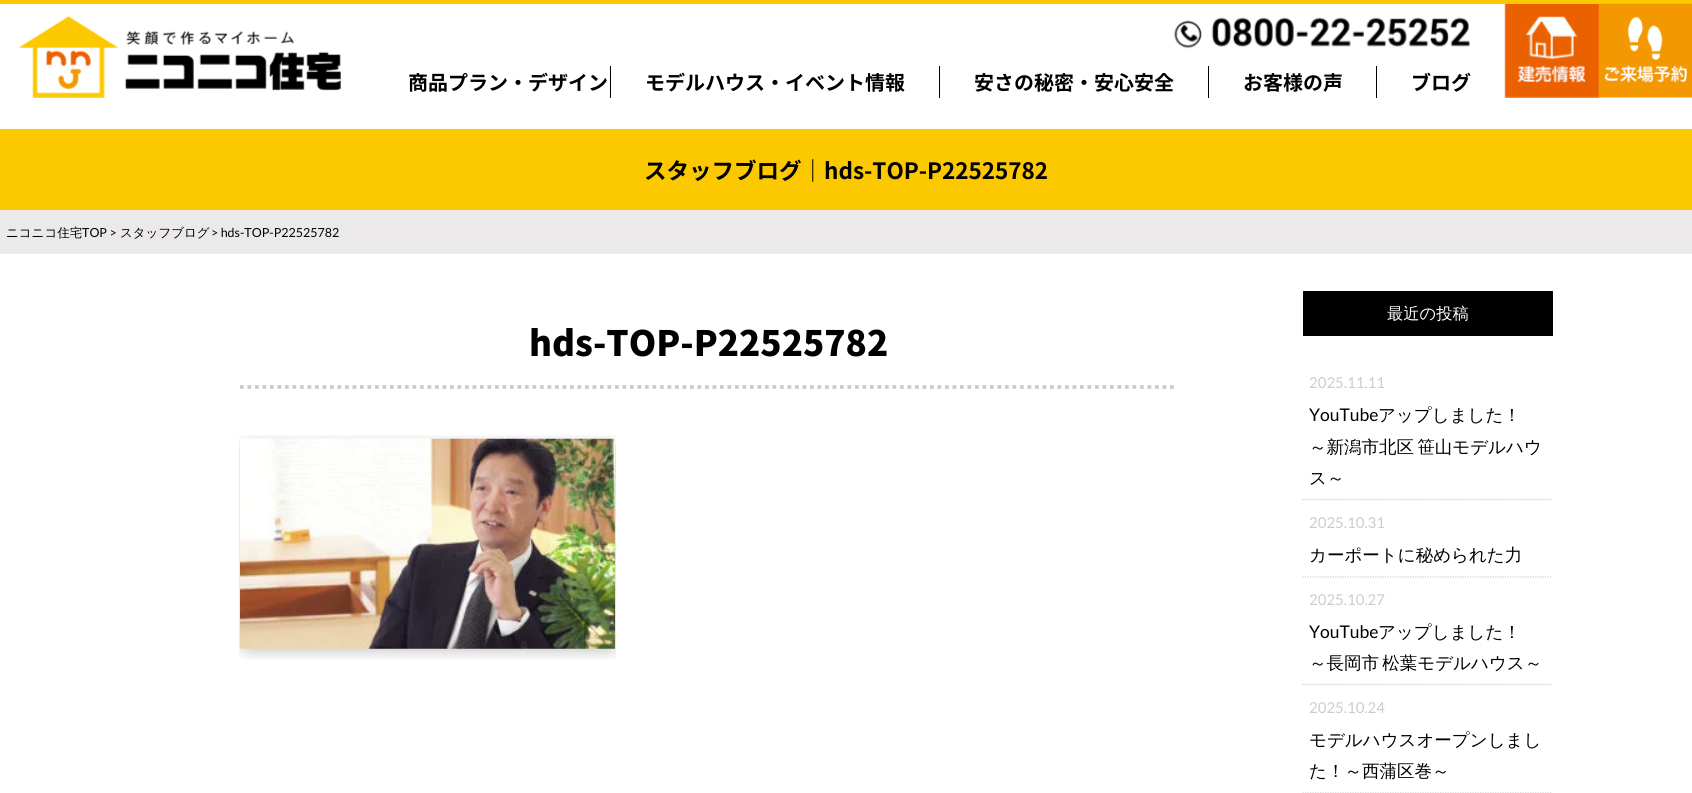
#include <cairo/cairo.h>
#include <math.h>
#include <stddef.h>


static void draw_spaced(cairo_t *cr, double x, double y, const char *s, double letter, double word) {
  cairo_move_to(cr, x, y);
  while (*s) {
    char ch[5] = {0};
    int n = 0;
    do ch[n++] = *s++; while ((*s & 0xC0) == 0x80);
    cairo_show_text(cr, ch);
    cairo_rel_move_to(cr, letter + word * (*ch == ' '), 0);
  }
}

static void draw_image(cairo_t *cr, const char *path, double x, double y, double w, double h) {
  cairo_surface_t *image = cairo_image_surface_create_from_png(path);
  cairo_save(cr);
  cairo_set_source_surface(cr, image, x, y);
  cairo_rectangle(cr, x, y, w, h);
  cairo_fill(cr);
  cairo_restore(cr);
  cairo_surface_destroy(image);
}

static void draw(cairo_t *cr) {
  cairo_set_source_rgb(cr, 1, 1, 1);
  cairo_paint(cr);
  cairo_set_source_rgb(cr, 252 / 255.0, 200 / 255.0, 0);
  cairo_rectangle(cr, 0, 0, 1692, 4);
  cairo_fill(cr);
  draw_image(cr, "images/1.png", 19, 15, 322, 83);
  draw_image(cr, "images/2.png", 1173, 17, 297, 32);
  cairo_set_source_rgb(cr, 0, 0, 0);
  cairo_rectangle(cr, 610, 66, 1, 32);
  cairo_fill(cr);
  cairo_rectangle(cr, 939, 66, 1, 32);
  cairo_fill(cr);
  cairo_rectangle(cr, 1208, 66, 1, 32);
  cairo_fill(cr);
  cairo_rectangle(cr, 1376, 66, 1, 32);
  cairo_fill(cr);
  draw_image(cr, "images/3.png", 1504, 4, 95, 94);
  draw_image(cr, "images/4.png", 1598, 3, 94, 95);
  cairo_set_source_rgb(cr, 252 / 255.0, 200 / 255.0, 0);
  cairo_rectangle(cr, 0, 129, 1692, 81);
  cairo_fill(cr);
  cairo_set_source_rgb(cr, 235 / 255.0, 233 / 255.0, 233 / 255.0);
  cairo_rectangle(cr, 0, 210, 1692, 44);
  cairo_fill(cr);
  cairo_new_path(cr);
  cairo_move_to(cr, 240, 387);
  cairo_line_to(cr, 1177.5, 387);
  cairo_set_source_rgb(cr, 204 / 255.0, 204 / 255.0, 204 / 255.0);
  cairo_set_line_width(cr, 3.8);
  cairo_set_dash(cr, (double[]){3.75, 3.75}, 2, 0);
  cairo_stroke(cr);
  draw_image(cr, "images/5.png", 239, 435, 377, 225);
  cairo_set_source_rgb(cr, 0, 0, 0);
  cairo_rectangle(cr, 1303, 291, 250, 45);
  cairo_fill(cr);
  cairo_new_path(cr);
  cairo_move_to(cr, 1302.5, 499.5);
  cairo_line_to(cr, 1552.5, 499.5);
  cairo_set_source_rgb(cr, 204 / 255.0, 204 / 255.0, 204 / 255.0);
  cairo_set_line_width(cr, 1.2);
  cairo_set_dash(cr, (double[]){1.25, 1.25}, 2, 0);
  cairo_stroke(cr);
  cairo_new_path(cr);
  cairo_move_to(cr, 1302.5, 577);
  cairo_line_to(cr, 1552.5, 577);
  cairo_stroke(cr);
  cairo_new_path(cr);
  cairo_move_to(cr, 1302.5, 684.5);
  cairo_line_to(cr, 1552.5, 684.5);
  cairo_stroke(cr);
  cairo_new_path(cr);
  cairo_move_to(cr, 1302.5, 793);
  cairo_line_to(cr, 1552.5, 793);
  cairo_stroke(cr);
  cairo_select_font_face(cr, "Noto Sans JP", CAIRO_FONT_SLANT_NORMAL, CAIRO_FONT_WEIGHT_BOLD);
  cairo_set_font_size(cr, 20);
  cairo_set_source_rgb(cr, 0, 0, 0);
  cairo_move_to(cr, 408, 90);
  cairo_show_text(cr, "商品プラン・デザイン");
  cairo_move_to(cr, 645, 90);
  cairo_show_text(cr, "モデルハウス・イベント情報");
  cairo_move_to(cr, 974, 90);
  cairo_show_text(cr, "安さの秘密・安心安全");
  cairo_move_to(cr, 1243, 90);
  cairo_show_text(cr, "お客様の声");
  cairo_move_to(cr, 1411, 90);
  cairo_show_text(cr, "ブログ");
  cairo_set_font_size(cr, 22.5);
  cairo_move_to(cr, 644, 179);
  cairo_show_text(cr, "スタッフブログ｜hds-TOP-P22525782");
  cairo_select_font_face(cr, "WenQuanYi Zen Hei Medium", CAIRO_FONT_SLANT_NORMAL, CAIRO_FONT_WEIGHT_NORMAL);
  cairo_set_font_size(cr, 12.5);
  cairo_move_to(cr, 6, 237);
  cairo_show_text(cr, "ニコニコ住宅");
  cairo_select_font_face(cr, "Lato", CAIRO_FONT_SLANT_NORMAL, CAIRO_FONT_WEIGHT_NORMAL);
  cairo_move_to(cr, 82, 237);
  cairo_show_text(cr, "TOP >");
  cairo_select_font_face(cr, "WenQuanYi Zen Hei Medium", CAIRO_FONT_SLANT_NORMAL, CAIRO_FONT_WEIGHT_NORMAL);
  cairo_move_to(cr, 120, 237);
  cairo_show_text(cr, "スタッフブログ");
  cairo_select_font_face(cr, "Lato", CAIRO_FONT_SLANT_NORMAL, CAIRO_FONT_WEIGHT_NORMAL);
  cairo_move_to(cr, 211, 237);
  cairo_show_text(cr, "> hds-TOP-P22525782");
  cairo_select_font_face(cr, "Noto Sans JP Black", CAIRO_FONT_SLANT_NORMAL, CAIRO_FONT_WEIGHT_NORMAL);
  cairo_set_font_size(cr, 35);
  cairo_move_to(cr, 529, 356);
  cairo_show_text(cr, "hds-TOP-P22525782");
  cairo_select_font_face(cr, "WenQuanYi Zen Hei Medium", CAIRO_FONT_SLANT_NORMAL, CAIRO_FONT_WEIGHT_NORMAL);
  cairo_set_font_size(cr, 16.25);
  cairo_set_source_rgb(cr, 1, 1, 1);
  cairo_move_to(cr, 1387, 319);
  cairo_show_text(cr, "最近の投稿");
  cairo_select_font_face(cr, "Lato", CAIRO_FONT_SLANT_NORMAL, CAIRO_FONT_WEIGHT_NORMAL);
  cairo_set_font_size(cr, 15);
  cairo_set_source_rgb(cr, 204 / 255.0, 204 / 255.0, 204 / 255.0);
  cairo_move_to(cr, 1309, 388);
  cairo_show_text(cr, "2025.11.11");
  cairo_set_font_size(cr, 17.5);
  cairo_set_source_rgb(cr, 0, 0, 0);
  cairo_move_to(cr, 1309, 421);
  cairo_show_text(cr, "YouTube");
  cairo_select_font_face(cr, "WenQuanYi Zen Hei Medium", CAIRO_FONT_SLANT_NORMAL, CAIRO_FONT_WEIGHT_NORMAL);
  cairo_move_to(cr, 1378, 421);
  cairo_show_text(cr, "アップしました！");
  draw_spaced(cr, 1309, 453, "～新潟市北区 笹山モデルハウ", 0, -2);
  cairo_move_to(cr, 1309, 484);
  cairo_show_text(cr, "ス～");
  cairo_select_font_face(cr, "Lato", CAIRO_FONT_SLANT_NORMAL, CAIRO_FONT_WEIGHT_NORMAL);
  cairo_set_font_size(cr, 15);
  cairo_set_source_rgb(cr, 204 / 255.0, 204 / 255.0, 204 / 255.0);
  cairo_move_to(cr, 1309, 528);
  cairo_show_text(cr, "2025.10.31");
  cairo_select_font_face(cr, "WenQuanYi Zen Hei Medium", CAIRO_FONT_SLANT_NORMAL, CAIRO_FONT_WEIGHT_NORMAL);
  cairo_set_font_size(cr, 17.5);
  cairo_set_source_rgb(cr, 0, 0, 0);
  cairo_move_to(cr, 1309, 561);
  cairo_show_text(cr, "カーポートに秘められた力");
  cairo_select_font_face(cr, "Lato", CAIRO_FONT_SLANT_NORMAL, CAIRO_FONT_WEIGHT_NORMAL);
  cairo_set_font_size(cr, 15);
  cairo_set_source_rgb(cr, 204 / 255.0, 204 / 255.0, 204 / 255.0);
  cairo_move_to(cr, 1309, 605);
  cairo_show_text(cr, "2025.10.27");
  cairo_set_font_size(cr, 17.5);
  cairo_set_source_rgb(cr, 0, 0, 0);
  cairo_move_to(cr, 1309, 638);
  cairo_show_text(cr, "YouTube");
  cairo_select_font_face(cr, "WenQuanYi Zen Hei Medium", CAIRO_FONT_SLANT_NORMAL, CAIRO_FONT_WEIGHT_NORMAL);
  cairo_move_to(cr, 1378, 638);
  cairo_show_text(cr, "アップしました！");
  draw_spaced(cr, 1309, 669, "～長岡市 松葉モデルハウス～", 0, -2);
  cairo_select_font_face(cr, "Lato", CAIRO_FONT_SLANT_NORMAL, CAIRO_FONT_WEIGHT_NORMAL);
  cairo_set_font_size(cr, 15);
  cairo_set_source_rgb(cr, 204 / 255.0, 204 / 255.0, 204 / 255.0);
  cairo_move_to(cr, 1309, 713);
  cairo_show_text(cr, "2025.10.24");
  cairo_select_font_face(cr, "WenQuanYi Zen Hei Medium", CAIRO_FONT_SLANT_NORMAL, CAIRO_FONT_WEIGHT_NORMAL);
  cairo_set_font_size(cr, 17.5);
  cairo_set_source_rgb(cr, 0, 0, 0);
  cairo_move_to(cr, 1309, 746);
  cairo_show_text(cr, "モデルハウスオープンしまし");
  cairo_move_to(cr, 1309, 777);
  cairo_show_text(cr, "た！～西蒲区巻～");
}

int main(void) {
  cairo_surface_t *surface = cairo_image_surface_create(CAIRO_FORMAT_RGB24, 1692, 793);
  cairo_t *cr = cairo_create(surface);
  cairo_font_options_t *options = cairo_font_options_create();
  cairo_font_options_set_hint_metrics(options, CAIRO_HINT_METRICS_OFF);
  cairo_font_options_set_hint_style(options, CAIRO_HINT_STYLE_NONE);
  cairo_set_font_options(cr, options);
  cairo_set_miter_limit(cr, 4);
  draw(cr);
  cairo_surface_write_to_png(surface, "out.png");
  cairo_font_options_destroy(options);
  cairo_destroy(cr);
  cairo_surface_destroy(surface);
  return 0;
}
